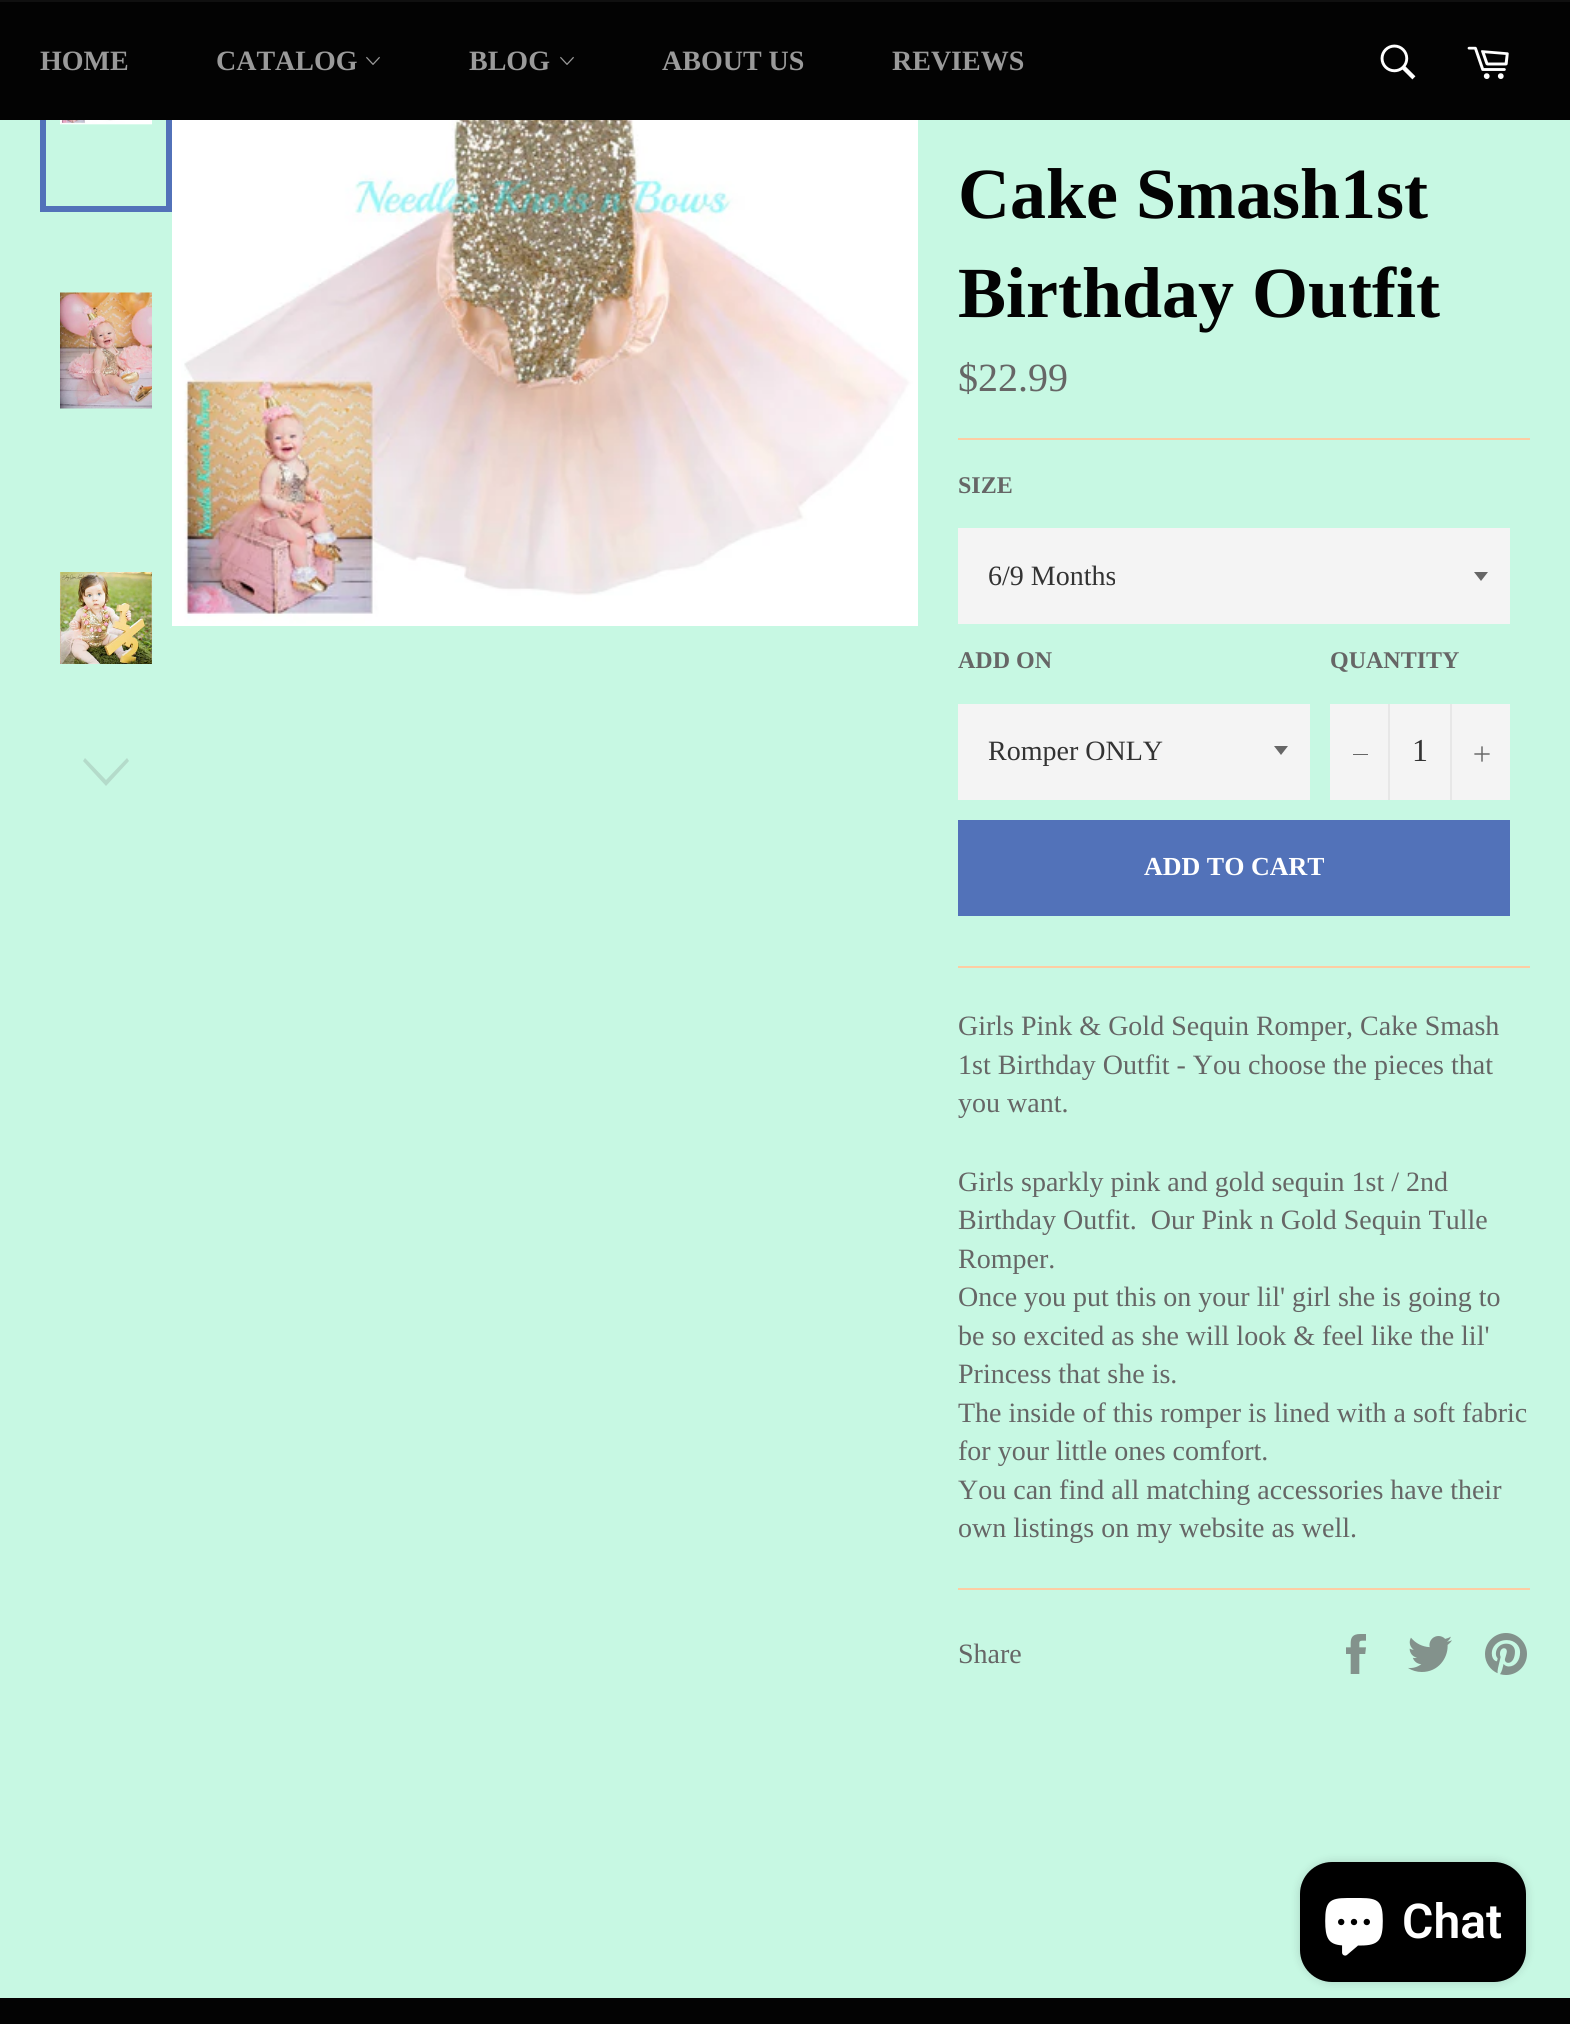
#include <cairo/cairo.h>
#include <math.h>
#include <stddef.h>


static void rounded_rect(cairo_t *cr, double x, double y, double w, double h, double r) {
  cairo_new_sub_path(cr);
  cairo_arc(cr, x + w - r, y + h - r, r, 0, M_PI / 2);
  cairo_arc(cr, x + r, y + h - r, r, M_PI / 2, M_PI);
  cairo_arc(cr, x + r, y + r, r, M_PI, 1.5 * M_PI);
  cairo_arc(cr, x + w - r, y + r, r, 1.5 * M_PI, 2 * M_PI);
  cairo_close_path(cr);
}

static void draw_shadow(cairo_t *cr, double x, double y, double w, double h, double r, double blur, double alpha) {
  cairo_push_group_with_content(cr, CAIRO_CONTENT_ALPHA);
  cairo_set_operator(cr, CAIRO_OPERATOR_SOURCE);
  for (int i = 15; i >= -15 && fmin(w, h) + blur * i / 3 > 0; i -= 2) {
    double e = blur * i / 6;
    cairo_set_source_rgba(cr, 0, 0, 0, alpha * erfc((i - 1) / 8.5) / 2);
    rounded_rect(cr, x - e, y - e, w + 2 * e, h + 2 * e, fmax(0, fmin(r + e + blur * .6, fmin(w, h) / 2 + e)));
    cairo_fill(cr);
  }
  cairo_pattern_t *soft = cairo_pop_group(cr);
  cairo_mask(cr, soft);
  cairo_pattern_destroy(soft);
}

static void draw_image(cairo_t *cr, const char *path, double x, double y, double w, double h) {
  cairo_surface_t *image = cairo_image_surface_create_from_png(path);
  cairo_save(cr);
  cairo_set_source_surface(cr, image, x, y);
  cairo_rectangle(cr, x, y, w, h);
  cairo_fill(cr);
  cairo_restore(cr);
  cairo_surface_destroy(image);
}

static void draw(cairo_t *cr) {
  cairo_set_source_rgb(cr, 199 / 255.0, 248 / 255.0, 227 / 255.0);
  cairo_paint(cr);
  draw_image(cr, "images/4.png", 60, 120, 92, 5);
  cairo_rectangle(cr, 43, -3, 126, 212);
  cairo_set_source_rgb(cr, 82 / 255.0, 114 / 255.0, 185 / 255.0);
  cairo_set_line_width(cr, 6);
  cairo_stroke(cr);
  cairo_set_source_rgb(cr, 3 / 255.0, 3 / 255.0, 3 / 255.0);
  cairo_rectangle(cr, 0, 2, 1570, 118);
  cairo_fill(cr);
  cairo_set_source_rgb(cr, 16 / 255.0, 16 / 255.0, 16 / 255.0);
  cairo_rectangle(cr, 0, 0, 1570, 2);
  cairo_fill(cr);
  draw_image(cr, "images/1.png", 366, 56, 14, 9);
  draw_image(cr, "images/1.png", 560, 56, 14, 9);
  draw_image(cr, "images/2.png", 1380, 44, 36, 36);
  draw_image(cr, "images/3.png", 1467, 46, 42, 33);
  draw_image(cr, "images/5.png", 60, 292, 92, 117);
  draw_image(cr, "images/6.png", 60, 572, 92, 92);
  cairo_set_source_rgb(cr, 180 / 255.0, 219 / 255.0, 202 / 255.0);
  cairo_new_path(cr);
  cairo_move_to(cr, 127, 758);
  cairo_line_to(cr, 129, 761);
  cairo_line_to(cr, 106, 786);
  cairo_line_to(cr, 83, 761);
  cairo_line_to(cr, 85, 758);
  cairo_line_to(cr, 106, 780);
  cairo_close_path(cr);
  cairo_fill(cr);
  draw_image(cr, "images/7.png", 172, 120, 746, 506);
  cairo_set_source_rgb(cr, 253 / 255.0, 205 / 255.0, 163 / 255.0);
  cairo_rectangle(cr, 958, 438, 572, 2);
  cairo_fill(cr);
  cairo_set_source_rgb(cr, 244 / 255.0, 244 / 255.0, 244 / 255.0);
  cairo_rectangle(cr, 958, 528, 552, 96);
  cairo_fill(cr);
  cairo_set_source_rgb(cr, 102 / 255.0, 102 / 255.0, 102 / 255.0);
  cairo_new_path(cr);
  cairo_move_to(cr, 1474, 572);
  cairo_line_to(cr, 1481, 581);
  cairo_line_to(cr, 1488, 572);
  cairo_close_path(cr);
  cairo_fill(cr);
  cairo_set_source_rgb(cr, 244 / 255.0, 244 / 255.0, 244 / 255.0);
  cairo_rectangle(cr, 958, 704, 352, 96);
  cairo_fill(cr);
  cairo_set_source_rgb(cr, 102 / 255.0, 102 / 255.0, 102 / 255.0);
  cairo_new_path(cr);
  cairo_move_to(cr, 1274, 746);
  cairo_line_to(cr, 1281, 755);
  cairo_line_to(cr, 1288, 746);
  cairo_close_path(cr);
  cairo_fill(cr);
  cairo_set_source_rgb(cr, 244 / 255.0, 244 / 255.0, 244 / 255.0);
  cairo_rectangle(cr, 1330, 704, 180, 96);
  cairo_fill(cr);
  cairo_set_source_rgb(cr, 231 / 255.0, 231 / 255.0, 231 / 255.0);
  cairo_rectangle(cr, 1388, 704, 2, 96);
  cairo_fill(cr);
  cairo_set_source_rgb(cr, 102 / 255.0, 102 / 255.0, 102 / 255.0);
  cairo_rectangle(cr, 1353, 754, 15, 1);
  cairo_fill(cr);
  cairo_set_source_rgb(cr, 231 / 255.0, 231 / 255.0, 231 / 255.0);
  cairo_rectangle(cr, 1450, 704, 2, 96);
  cairo_fill(cr);
  draw_image(cr, "images/8.png", 1474, 746, 16, 16);
  cairo_set_source_rgb(cr, 82 / 255.0, 114 / 255.0, 185 / 255.0);
  cairo_rectangle(cr, 958, 820, 552, 96);
  cairo_fill(cr);
  cairo_set_source_rgb(cr, 253 / 255.0, 205 / 255.0, 163 / 255.0);
  cairo_rectangle(cr, 958, 966, 572, 2);
  cairo_fill(cr);
  cairo_rectangle(cr, 958, 1588, 572, 2);
  cairo_fill(cr);
  draw_image(cr, "images/9.png", 1346, 1634, 20, 40);
  draw_image(cr, "images/10.png", 1408, 1636, 44, 36);
  draw_image(cr, "images/11.png", 1485, 1633, 42, 42);
  cairo_set_source_rgb(cr, 3 / 255.0, 3 / 255.0, 3 / 255.0);
  cairo_rectangle(cr, 0, 1998, 1570, 26);
  cairo_fill(cr);
  cairo_set_source_rgb(cr, 0, 0, 0);
  draw_shadow(cr, 1300, 1862, 226, 120, 32, 5, 0.15);
  cairo_set_source_rgb(cr, 0, 0, 0);
  rounded_rect(cr, 1300, 1862, 226, 120, 32);
  cairo_fill(cr);
  draw_image(cr, "images/12.png", 1325, 1898, 58, 58);
  cairo_select_font_face(cr, "Liberation Serif", CAIRO_FONT_SLANT_NORMAL, CAIRO_FONT_WEIGHT_BOLD);
  cairo_set_font_size(cr, 28);
  cairo_set_source_rgb(cr, 154 / 255.0, 154 / 255.0, 154 / 255.0);
  cairo_move_to(cr, 40, 70);
  cairo_show_text(cr, "HOME");
  cairo_move_to(cr, 216, 70);
  cairo_show_text(cr, "CATALOG");
  cairo_move_to(cr, 469, 70);
  cairo_show_text(cr, "BLOG");
  cairo_move_to(cr, 662, 70);
  cairo_show_text(cr, "ABOUT US");
  cairo_move_to(cr, 892, 70);
  cairo_show_text(cr, "REVIEWS");
  cairo_set_font_size(cr, 72);
  cairo_set_source_rgb(cr, 3 / 255.0, 3 / 255.0, 3 / 255.0);
  cairo_move_to(cr, 958, 218);
  cairo_show_text(cr, "Cake Smash1st");
  cairo_move_to(cr, 958, 317);
  cairo_show_text(cr, "Birthday Outfit");
  cairo_select_font_face(cr, "Liberation Serif", CAIRO_FONT_SLANT_NORMAL, CAIRO_FONT_WEIGHT_NORMAL);
  cairo_set_font_size(cr, 40);
  cairo_set_source_rgb(cr, 102 / 255.0, 102 / 255.0, 102 / 255.0);
  cairo_move_to(cr, 958, 391);
  cairo_show_text(cr, "$22.99");
  cairo_select_font_face(cr, "Liberation Serif", CAIRO_FONT_SLANT_NORMAL, CAIRO_FONT_WEIGHT_BOLD);
  cairo_set_font_size(cr, 24);
  cairo_move_to(cr, 958, 493);
  cairo_show_text(cr, "SIZE");
  cairo_select_font_face(cr, "Liberation Serif", CAIRO_FONT_SLANT_NORMAL, CAIRO_FONT_WEIGHT_NORMAL);
  cairo_set_font_size(cr, 28);
  cairo_set_source_rgb(cr, 51 / 255.0, 51 / 255.0, 51 / 255.0);
  cairo_move_to(cr, 988, 585);
  cairo_show_text(cr, "6/9 Months");
  cairo_select_font_face(cr, "Liberation Serif", CAIRO_FONT_SLANT_NORMAL, CAIRO_FONT_WEIGHT_BOLD);
  cairo_set_font_size(cr, 24);
  cairo_set_source_rgb(cr, 102 / 255.0, 102 / 255.0, 102 / 255.0);
  cairo_move_to(cr, 958, 668);
  cairo_show_text(cr, "ADD ON");
  cairo_select_font_face(cr, "Liberation Serif", CAIRO_FONT_SLANT_NORMAL, CAIRO_FONT_WEIGHT_NORMAL);
  cairo_set_font_size(cr, 28);
  cairo_set_source_rgb(cr, 51 / 255.0, 51 / 255.0, 51 / 255.0);
  cairo_move_to(cr, 988, 760);
  cairo_show_text(cr, "Romper ONLY");
  cairo_select_font_face(cr, "Liberation Serif", CAIRO_FONT_SLANT_NORMAL, CAIRO_FONT_WEIGHT_BOLD);
  cairo_set_font_size(cr, 24);
  cairo_set_source_rgb(cr, 102 / 255.0, 102 / 255.0, 102 / 255.0);
  cairo_move_to(cr, 1330, 668);
  cairo_show_text(cr, "QUANTITY");
  cairo_select_font_face(cr, "Liberation Serif", CAIRO_FONT_SLANT_NORMAL, CAIRO_FONT_WEIGHT_NORMAL);
  cairo_set_font_size(cr, 32);
  cairo_set_source_rgb(cr, 51 / 255.0, 51 / 255.0, 51 / 255.0);
  cairo_move_to(cr, 1412, 761);
  cairo_show_text(cr, "1");
  cairo_select_font_face(cr, "Liberation Serif", CAIRO_FONT_SLANT_NORMAL, CAIRO_FONT_WEIGHT_BOLD);
  cairo_set_font_size(cr, 26);
  cairo_set_source_rgb(cr, 1, 1, 1);
  cairo_move_to(cr, 1144, 875);
  cairo_show_text(cr, "ADD TO CART");
  cairo_select_font_face(cr, "Liberation Serif", CAIRO_FONT_SLANT_NORMAL, CAIRO_FONT_WEIGHT_NORMAL);
  cairo_set_font_size(cr, 28);
  cairo_set_source_rgb(cr, 102 / 255.0, 102 / 255.0, 102 / 255.0);
  cairo_move_to(cr, 958, 1035);
  cairo_show_text(cr, "Girls Pink & Gold Sequin Romper, Cake Smash");
  cairo_move_to(cr, 958, 1074);
  cairo_show_text(cr, "1st Birthday Outfit - You choose the pieces that");
  cairo_move_to(cr, 958, 1112);
  cairo_show_text(cr, "you want.");
  cairo_move_to(cr, 958, 1191);
  cairo_show_text(cr, "Girls sparkly pink and gold sequin 1st / 2nd");
  cairo_move_to(cr, 958, 1229);
  cairo_show_text(cr, "Birthday Outfit.  Our Pink n Gold Sequin Tulle");
  cairo_move_to(cr, 958, 1268);
  cairo_show_text(cr, "Romper.");
  cairo_move_to(cr, 958, 1306);
  cairo_show_text(cr, "Once you put this on your lil' girl she is going to");
  cairo_move_to(cr, 958, 1345);
  cairo_show_text(cr, "be so excited as she will look & feel like the lil'");
  cairo_move_to(cr, 958, 1383);
  cairo_show_text(cr, "Princess that she is.");
  cairo_move_to(cr, 958, 1422);
  cairo_show_text(cr, "The inside of this romper is lined with a soft fabric");
  cairo_move_to(cr, 958, 1460);
  cairo_show_text(cr, "for your little ones comfort.");
  cairo_move_to(cr, 958, 1499);
  cairo_show_text(cr, "You can find all matching accessories have their");
  cairo_move_to(cr, 958, 1537);
  cairo_show_text(cr, "own listings on my website as well.");
  cairo_move_to(cr, 958, 1663);
  cairo_show_text(cr, "Share");
  cairo_select_font_face(cr, "Roboto SemiBold", CAIRO_FONT_SLANT_NORMAL, CAIRO_FONT_WEIGHT_NORMAL);
  cairo_set_font_size(cr, 48);
  cairo_set_source_rgb(cr, 1, 1, 1);
  cairo_move_to(cr, 1402, 1938);
  cairo_show_text(cr, "Chat");
}

int main(void) {
  cairo_surface_t *surface = cairo_image_surface_create(CAIRO_FORMAT_RGB24, 1570, 2024);
  cairo_t *cr = cairo_create(surface);
  cairo_font_options_t *options = cairo_font_options_create();
  cairo_font_options_set_hint_metrics(options, CAIRO_HINT_METRICS_OFF);
  cairo_font_options_set_hint_style(options, CAIRO_HINT_STYLE_NONE);
  cairo_set_font_options(cr, options);
  cairo_set_miter_limit(cr, 4);
  draw(cr);
  cairo_surface_write_to_png(surface, "out.png");
  cairo_font_options_destroy(options);
  cairo_destroy(cr);
  cairo_surface_destroy(surface);
  return 0;
}
